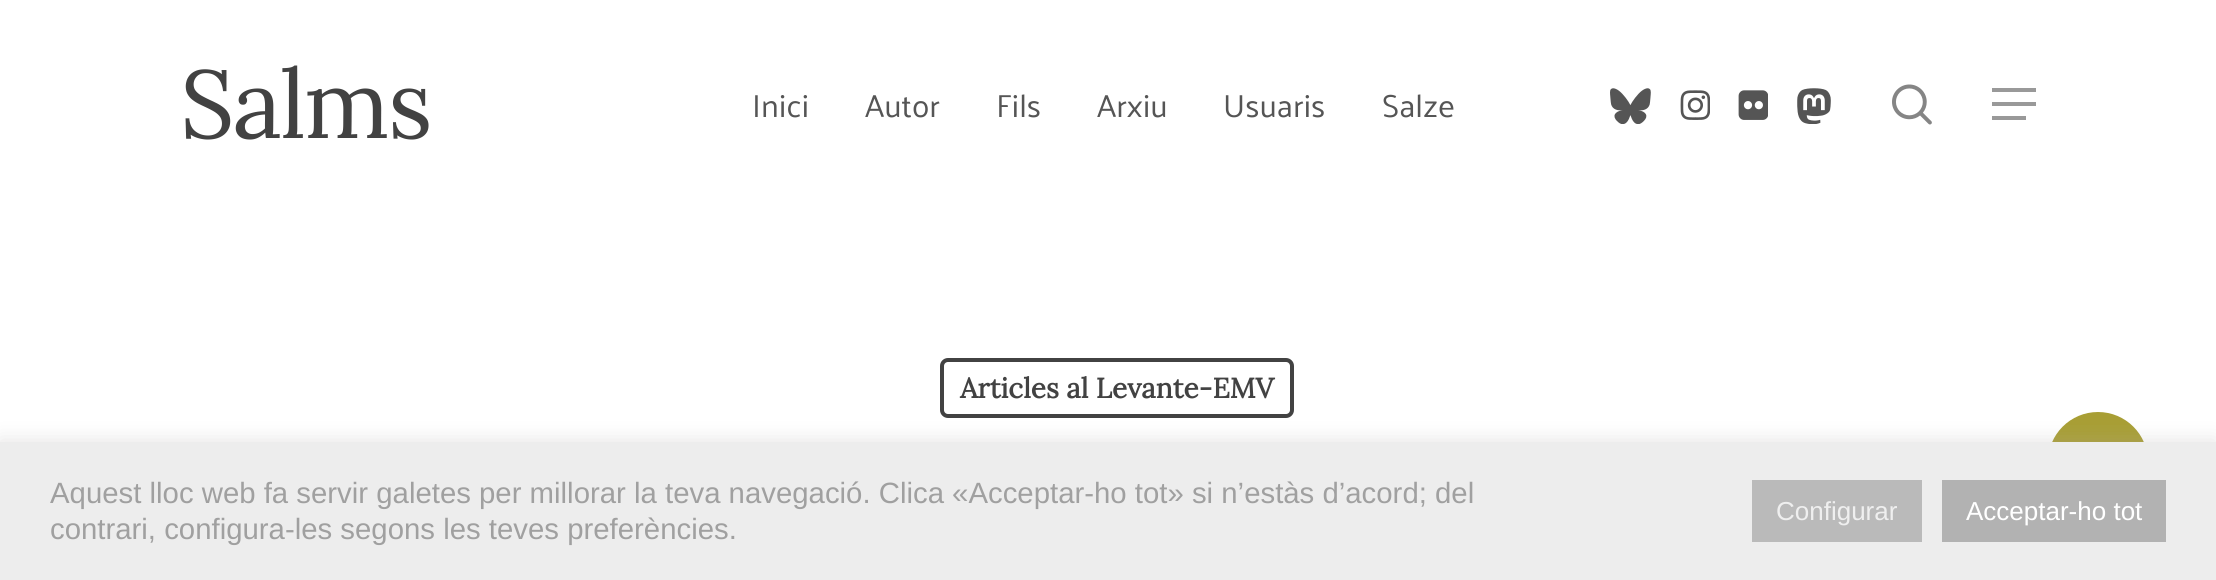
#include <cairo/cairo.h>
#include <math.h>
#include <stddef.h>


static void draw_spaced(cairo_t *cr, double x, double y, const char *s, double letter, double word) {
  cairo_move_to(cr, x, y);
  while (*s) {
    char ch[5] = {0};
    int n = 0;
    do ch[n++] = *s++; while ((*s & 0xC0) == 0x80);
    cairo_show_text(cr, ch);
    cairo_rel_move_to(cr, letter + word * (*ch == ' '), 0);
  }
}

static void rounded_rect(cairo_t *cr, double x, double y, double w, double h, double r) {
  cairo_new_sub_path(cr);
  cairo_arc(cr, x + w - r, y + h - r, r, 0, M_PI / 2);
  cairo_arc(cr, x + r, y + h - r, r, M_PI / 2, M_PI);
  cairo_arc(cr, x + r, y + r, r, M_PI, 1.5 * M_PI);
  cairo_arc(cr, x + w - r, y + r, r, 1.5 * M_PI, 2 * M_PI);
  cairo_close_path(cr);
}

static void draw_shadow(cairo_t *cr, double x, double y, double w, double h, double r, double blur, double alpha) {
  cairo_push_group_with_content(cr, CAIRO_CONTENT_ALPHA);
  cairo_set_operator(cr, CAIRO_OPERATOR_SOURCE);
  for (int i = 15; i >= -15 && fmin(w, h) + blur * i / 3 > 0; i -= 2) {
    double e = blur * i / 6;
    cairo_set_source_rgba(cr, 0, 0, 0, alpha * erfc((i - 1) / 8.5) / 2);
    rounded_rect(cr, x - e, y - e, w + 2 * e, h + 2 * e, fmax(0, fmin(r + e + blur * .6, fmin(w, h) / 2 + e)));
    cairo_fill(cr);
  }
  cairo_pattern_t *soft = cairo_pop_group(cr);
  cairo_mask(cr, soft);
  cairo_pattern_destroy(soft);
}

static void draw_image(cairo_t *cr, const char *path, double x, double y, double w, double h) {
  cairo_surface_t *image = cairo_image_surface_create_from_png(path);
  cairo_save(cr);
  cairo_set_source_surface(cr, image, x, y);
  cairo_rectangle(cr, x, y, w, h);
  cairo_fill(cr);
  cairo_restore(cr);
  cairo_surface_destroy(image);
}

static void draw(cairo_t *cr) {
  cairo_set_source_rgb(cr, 1, 1, 1);
  cairo_paint(cr);
  draw_image(cr, "images/1.png", 1610, 88, 41, 36);
  draw_image(cr, "images/2.png", 1680, 90, 30, 30);
  draw_image(cr, "images/3.png", 1738, 90, 30, 30);
  draw_image(cr, "images/4.png", 1797, 88, 34, 36);
  draw_image(cr, "images/5.png", 1892, 84, 40, 41);
  cairo_set_source_rgb(cr, 153 / 255.0, 153 / 255.0, 153 / 255.0);
  cairo_rectangle(cr, 1992, 88, 44, 4);
  cairo_fill(cr);
  cairo_rectangle(cr, 1992, 116, 34, 4);
  cairo_fill(cr);
  cairo_rectangle(cr, 1992, 102, 44, 4);
  cairo_fill(cr);
  rounded_rect(cr, 942, 360, 350, 56, 6);
  cairo_set_source_rgb(cr, 66 / 255.0, 66 / 255.0, 66 / 255.0);
  cairo_set_line_width(cr, 4);
  cairo_stroke(cr);
  cairo_set_source_rgb(cr, 168 / 255.0, 158 / 255.0, 52 / 255.0);
  cairo_arc(cr, 2098, 462, 50, 0, 2 * M_PI);
  cairo_fill(cr);
  cairo_set_source_rgb(cr, 172 / 255.0, 171 / 255.0, 171 / 255.0);
  draw_shadow(cr, 0, 440, 2216, 138, 0, 10, 0.3);
  cairo_set_source_rgb(cr, 237 / 255.0, 237 / 255.0, 237 / 255.0);
  cairo_rectangle(cr, 0, 442, 2216, 138);
  cairo_fill(cr);
  cairo_set_source_rgb(cr, 186 / 255.0, 186 / 255.0, 186 / 255.0);
  cairo_rectangle(cr, 1752, 480, 170, 62);
  cairo_fill(cr);
  cairo_set_source_rgb(cr, 178 / 255.0, 178 / 255.0, 178 / 255.0);
  cairo_rectangle(cr, 1942, 480, 224, 62);
  cairo_fill(cr);
  cairo_select_font_face(cr, "Lora", CAIRO_FONT_SLANT_NORMAL, CAIRO_FONT_WEIGHT_NORMAL);
  cairo_set_font_size(cr, 96);
  cairo_set_source_rgb(cr, 66 / 255.0, 66 / 255.0, 66 / 255.0);
  draw_spaced(cr, 180, 138, "Salms", -2, 0);
  cairo_select_font_face(cr, "Palanquin", CAIRO_FONT_SLANT_NORMAL, CAIRO_FONT_WEIGHT_NORMAL);
  cairo_set_font_size(cr, 32);
  cairo_set_source_rgb(cr, 85 / 255.0, 85 / 255.0, 85 / 255.0);
  cairo_move_to(cr, 752, 117);
  cairo_show_text(cr, "Inici");
  cairo_move_to(cr, 865, 117);
  cairo_show_text(cr, "Autor");
  cairo_move_to(cr, 996, 117);
  cairo_show_text(cr, "Fils");
  cairo_move_to(cr, 1097, 117);
  cairo_show_text(cr, "Arxiu");
  cairo_move_to(cr, 1223, 117);
  cairo_show_text(cr, "Usuaris");
  cairo_move_to(cr, 1382, 117);
  cairo_show_text(cr, "Salze");
  cairo_select_font_face(cr, "Lora", CAIRO_FONT_SLANT_NORMAL, CAIRO_FONT_WEIGHT_BOLD);
  cairo_set_font_size(cr, 28);
  cairo_set_source_rgb(cr, 66 / 255.0, 66 / 255.0, 66 / 255.0);
  cairo_move_to(cr, 960, 398);
  cairo_show_text(cr, "Articles al Levante-EMV");
  cairo_select_font_face(cr, "Liberation Sans", CAIRO_FONT_SLANT_NORMAL, CAIRO_FONT_WEIGHT_NORMAL);
  cairo_set_font_size(cr, 29.35);
  cairo_set_source_rgb(cr, 160 / 255.0, 160 / 255.0, 160 / 255.0);
  cairo_move_to(cr, 50, 503);
  cairo_show_text(cr, "Aquest lloc web fa servir galetes per millorar la teva navegació. Clica «Acceptar-ho tot» si n’estàs d’acord; del");
  cairo_move_to(cr, 50, 539);
  cairo_show_text(cr, "contrari, configura-les segons les teves preferències.");
  cairo_set_font_size(cr, 26);
  cairo_set_source_rgb(cr, 239 / 255.0, 239 / 255.0, 239 / 255.0);
  cairo_move_to(cr, 1776, 520);
  cairo_show_text(cr, "Configurar");
  cairo_set_source_rgb(cr, 1, 1, 1);
  cairo_move_to(cr, 1966, 520);
  cairo_show_text(cr, "Acceptar-ho tot");
}

int main(void) {
  cairo_surface_t *surface = cairo_image_surface_create(CAIRO_FORMAT_RGB24, 2216, 580);
  cairo_t *cr = cairo_create(surface);
  cairo_font_options_t *options = cairo_font_options_create();
  cairo_font_options_set_hint_metrics(options, CAIRO_HINT_METRICS_OFF);
  cairo_font_options_set_hint_style(options, CAIRO_HINT_STYLE_NONE);
  cairo_set_font_options(cr, options);
  cairo_set_miter_limit(cr, 4);
  draw(cr);
  cairo_surface_write_to_png(surface, "out.png");
  cairo_font_options_destroy(options);
  cairo_destroy(cr);
  cairo_surface_destroy(surface);
  return 0;
}
